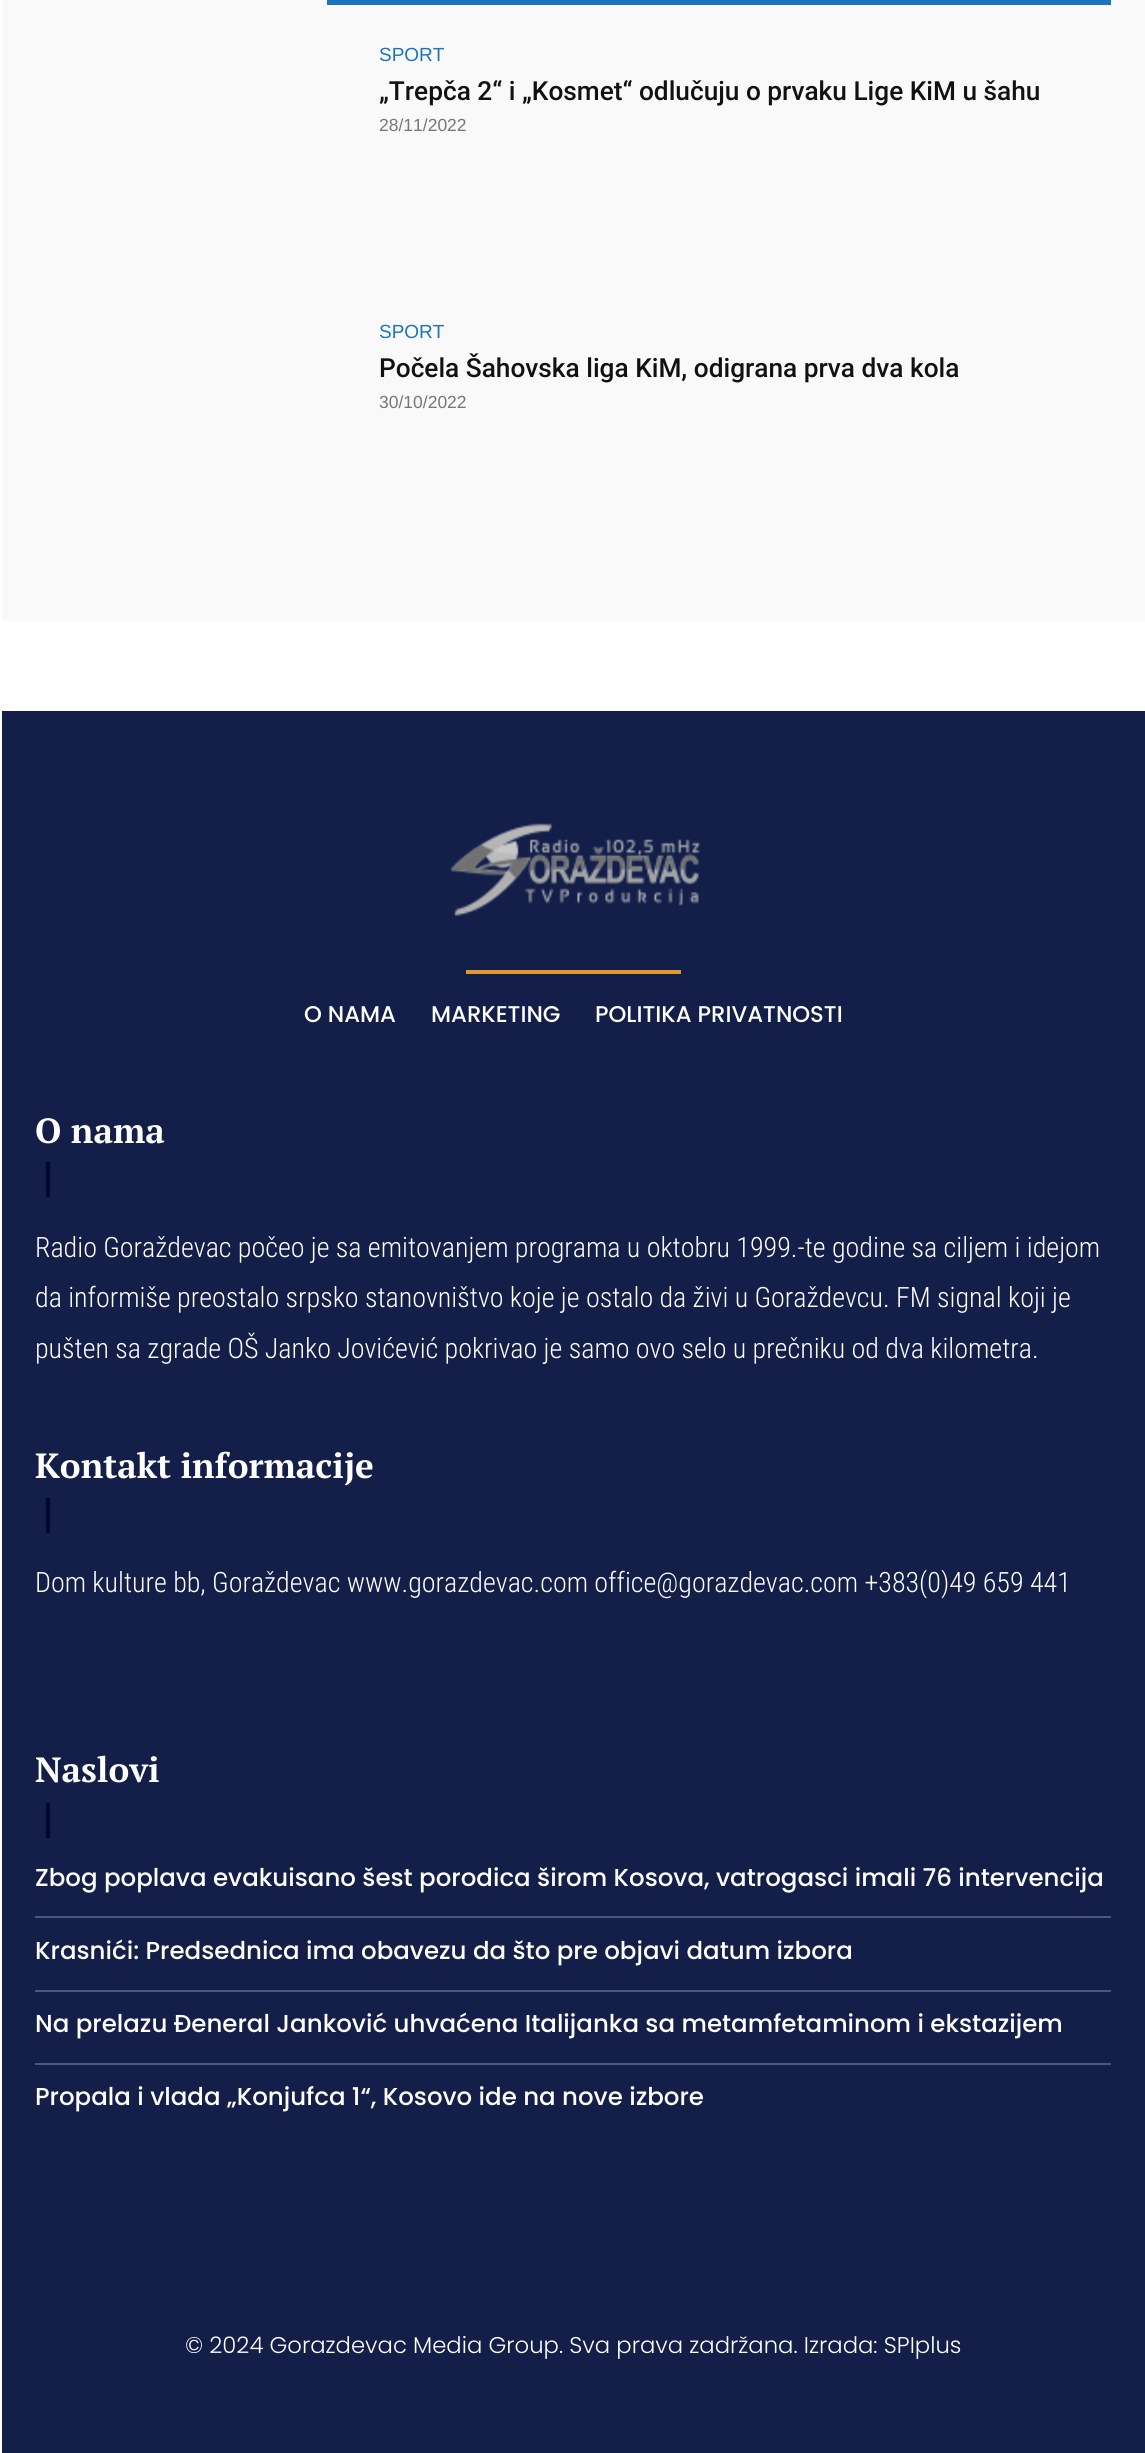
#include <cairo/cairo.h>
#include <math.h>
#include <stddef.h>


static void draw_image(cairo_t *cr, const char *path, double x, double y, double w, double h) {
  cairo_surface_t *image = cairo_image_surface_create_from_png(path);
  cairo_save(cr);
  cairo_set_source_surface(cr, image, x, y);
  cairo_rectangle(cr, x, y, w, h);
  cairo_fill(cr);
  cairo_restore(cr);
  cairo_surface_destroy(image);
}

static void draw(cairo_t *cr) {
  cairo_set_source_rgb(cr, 1, 1, 1);
  cairo_paint(cr);
  cairo_set_source_rgb(cr, 249 / 255.0, 249 / 255.0, 249 / 255.0);
  cairo_rectangle(cr, 2, 0, 1143, 621);
  cairo_fill(cr);
  cairo_set_source_rgb(cr, 30 / 255.0, 115 / 255.0, 190 / 255.0);
  cairo_rectangle(cr, 327, 0, 784, 5);
  cairo_fill(cr);
  cairo_set_source_rgb(cr, 19 / 255.0, 31 / 255.0, 73 / 255.0);
  cairo_rectangle(cr, 2, 711, 1143, 1742);
  cairo_fill(cr);
  draw_image(cr, "images/1.png", 450, 823, 251, 94);
  cairo_set_source_rgb(cr, 221 / 255.0, 153 / 255.0, 51 / 255.0);
  cairo_rectangle(cr, 466, 970, 215, 4);
  cairo_fill(cr);
  cairo_set_source_rgb(cr, 0, 6 / 255.0, 45 / 255.0);
  cairo_rectangle(cr, 46, 1162, 4, 35);
  cairo_fill(cr);
  cairo_rectangle(cr, 46, 1498, 4, 35);
  cairo_fill(cr);
  cairo_rectangle(cr, 46, 1803, 4, 35);
  cairo_fill(cr);
  cairo_set_source_rgb(cr, 78 / 255.0, 87 / 255.0, 119 / 255.0);
  cairo_rectangle(cr, 35, 1916, 1076, 2);
  cairo_fill(cr);
  cairo_rectangle(cr, 35, 1990, 1076, 2);
  cairo_fill(cr);
  cairo_rectangle(cr, 35, 2063, 1076, 2);
  cairo_fill(cr);
  cairo_select_font_face(cr, "Liberation Sans", CAIRO_FONT_SLANT_NORMAL, CAIRO_FONT_WEIGHT_NORMAL);
  cairo_set_font_size(cr, 19);
  cairo_set_source_rgb(cr, 30 / 255.0, 115 / 255.0, 190 / 255.0);
  cairo_move_to(cr, 379, 61);
  cairo_show_text(cr, "SPORT");
  cairo_select_font_face(cr, "Roboto Medium", CAIRO_FONT_SLANT_NORMAL, CAIRO_FONT_WEIGHT_NORMAL);
  cairo_set_font_size(cr, 26.25);
  cairo_set_source_rgb(cr, 17 / 255.0, 17 / 255.0, 17 / 255.0);
  cairo_move_to(cr, 379, 100);
  cairo_show_text(cr, "„Trepča 2“ i „Kosmet“ odlučuju o prvaku Lige KiM u šahu");
  cairo_select_font_face(cr, "Liberation Sans", CAIRO_FONT_SLANT_NORMAL, CAIRO_FONT_WEIGHT_NORMAL);
  cairo_set_font_size(cr, 17.5);
  cairo_set_source_rgb(cr, 118 / 255.0, 118 / 255.0, 118 / 255.0);
  cairo_move_to(cr, 379, 131);
  cairo_show_text(cr, "28/11/2022");
  cairo_set_font_size(cr, 19);
  cairo_set_source_rgb(cr, 30 / 255.0, 115 / 255.0, 190 / 255.0);
  cairo_move_to(cr, 379, 338);
  cairo_show_text(cr, "SPORT");
  cairo_select_font_face(cr, "Roboto Medium", CAIRO_FONT_SLANT_NORMAL, CAIRO_FONT_WEIGHT_NORMAL);
  cairo_set_font_size(cr, 26.25);
  cairo_set_source_rgb(cr, 17 / 255.0, 17 / 255.0, 17 / 255.0);
  cairo_move_to(cr, 379, 377);
  cairo_show_text(cr, "Počela Šahovska liga KiM, odigrana prva dva kola");
  cairo_select_font_face(cr, "Liberation Sans", CAIRO_FONT_SLANT_NORMAL, CAIRO_FONT_WEIGHT_NORMAL);
  cairo_set_font_size(cr, 17.5);
  cairo_set_source_rgb(cr, 118 / 255.0, 118 / 255.0, 118 / 255.0);
  cairo_move_to(cr, 379, 408);
  cairo_show_text(cr, "30/10/2022");
  cairo_select_font_face(cr, "Poppins Medium", CAIRO_FONT_SLANT_NORMAL, CAIRO_FONT_WEIGHT_NORMAL);
  cairo_set_font_size(cr, 22.75);
  cairo_set_source_rgb(cr, 1, 1, 1);
  cairo_move_to(cr, 304, 1022);
  cairo_show_text(cr, "O NAMA");
  cairo_move_to(cr, 431, 1022);
  cairo_show_text(cr, "MARKETING");
  cairo_move_to(cr, 595, 1022);
  cairo_show_text(cr, "POLITIKA PRIVATNOSTI");
  cairo_select_font_face(cr, "PT Serif", CAIRO_FONT_SLANT_NORMAL, CAIRO_FONT_WEIGHT_BOLD);
  cairo_set_font_size(cr, 35);
  cairo_move_to(cr, 35, 1143);
  cairo_show_text(cr, "O nama");
  cairo_select_font_face(cr, "Roboto Condensed Light", CAIRO_FONT_SLANT_NORMAL, CAIRO_FONT_WEIGHT_NORMAL);
  cairo_set_font_size(cr, 28);
  cairo_move_to(cr, 35, 1257);
  cairo_show_text(cr, "Radio Goraždevac počeo je sa emitovanjem programa u oktobru 1999.-te godine sa ciljem i idejom");
  cairo_move_to(cr, 35, 1307);
  cairo_show_text(cr, "da informiše preostalo srpsko stanovništvo koje je ostalo da živi u Goraždevcu. FM signal koji je");
  cairo_move_to(cr, 35, 1358);
  cairo_show_text(cr, "pušten sa zgrade OŠ Janko Jovićević pokrivao je samo ovo selo u prečniku od dva kilometra.");
  cairo_select_font_face(cr, "PT Serif", CAIRO_FONT_SLANT_NORMAL, CAIRO_FONT_WEIGHT_BOLD);
  cairo_set_font_size(cr, 35);
  cairo_move_to(cr, 35, 1478);
  cairo_show_text(cr, "Kontakt informacije");
  cairo_select_font_face(cr, "Roboto Condensed Light", CAIRO_FONT_SLANT_NORMAL, CAIRO_FONT_WEIGHT_NORMAL);
  cairo_set_font_size(cr, 28);
  cairo_move_to(cr, 35, 1592);
  cairo_show_text(cr, "Dom kulture bb, Goraždevac www.gorazdevac.com office@gorazdevac.com +383(0)49 659 441");
  cairo_select_font_face(cr, "PT Serif", CAIRO_FONT_SLANT_NORMAL, CAIRO_FONT_WEIGHT_BOLD);
  cairo_set_font_size(cr, 35);
  cairo_move_to(cr, 35, 1782);
  cairo_show_text(cr, "Naslovi");
  cairo_select_font_face(cr, "Poppins Medium", CAIRO_FONT_SLANT_NORMAL, CAIRO_FONT_WEIGHT_NORMAL);
  cairo_set_font_size(cr, 24.5);
  cairo_move_to(cr, 35, 1886);
  cairo_show_text(cr, "Zbog poplava evakuisano šest porodica širom Kosova, vatrogasci imali 76 intervencija");
  cairo_move_to(cr, 35, 1959);
  cairo_show_text(cr, "Krasnići: Predsednica ima obavezu da što pre objavi datum izbora");
  cairo_move_to(cr, 35, 2032);
  cairo_show_text(cr, "Na prelazu Đeneral Janković uhvaćena Italijanka sa metamfetaminom i ekstazijem");
  cairo_move_to(cr, 35, 2105);
  cairo_show_text(cr, "Propala i vlada „Konjufca 1“, Kosovo ide na nove izbore");
  cairo_select_font_face(cr, "Poppins Light", CAIRO_FONT_SLANT_NORMAL, CAIRO_FONT_WEIGHT_NORMAL);
  cairo_set_font_size(cr, 22.75);
  cairo_move_to(cr, 185, 2353);
  cairo_show_text(cr, "© 2024 Gorazdevac Media Group. Sva prava zadržana. Izrada: SPIplus");
}

int main(void) {
  cairo_surface_t *surface = cairo_image_surface_create(CAIRO_FORMAT_RGB24, 1145, 2453);
  cairo_t *cr = cairo_create(surface);
  cairo_font_options_t *options = cairo_font_options_create();
  cairo_font_options_set_hint_metrics(options, CAIRO_HINT_METRICS_OFF);
  cairo_font_options_set_hint_style(options, CAIRO_HINT_STYLE_NONE);
  cairo_set_font_options(cr, options);
  cairo_set_miter_limit(cr, 4);
  draw(cr);
  cairo_surface_write_to_png(surface, "out.png");
  cairo_font_options_destroy(options);
  cairo_destroy(cr);
  cairo_surface_destroy(surface);
  return 0;
}
